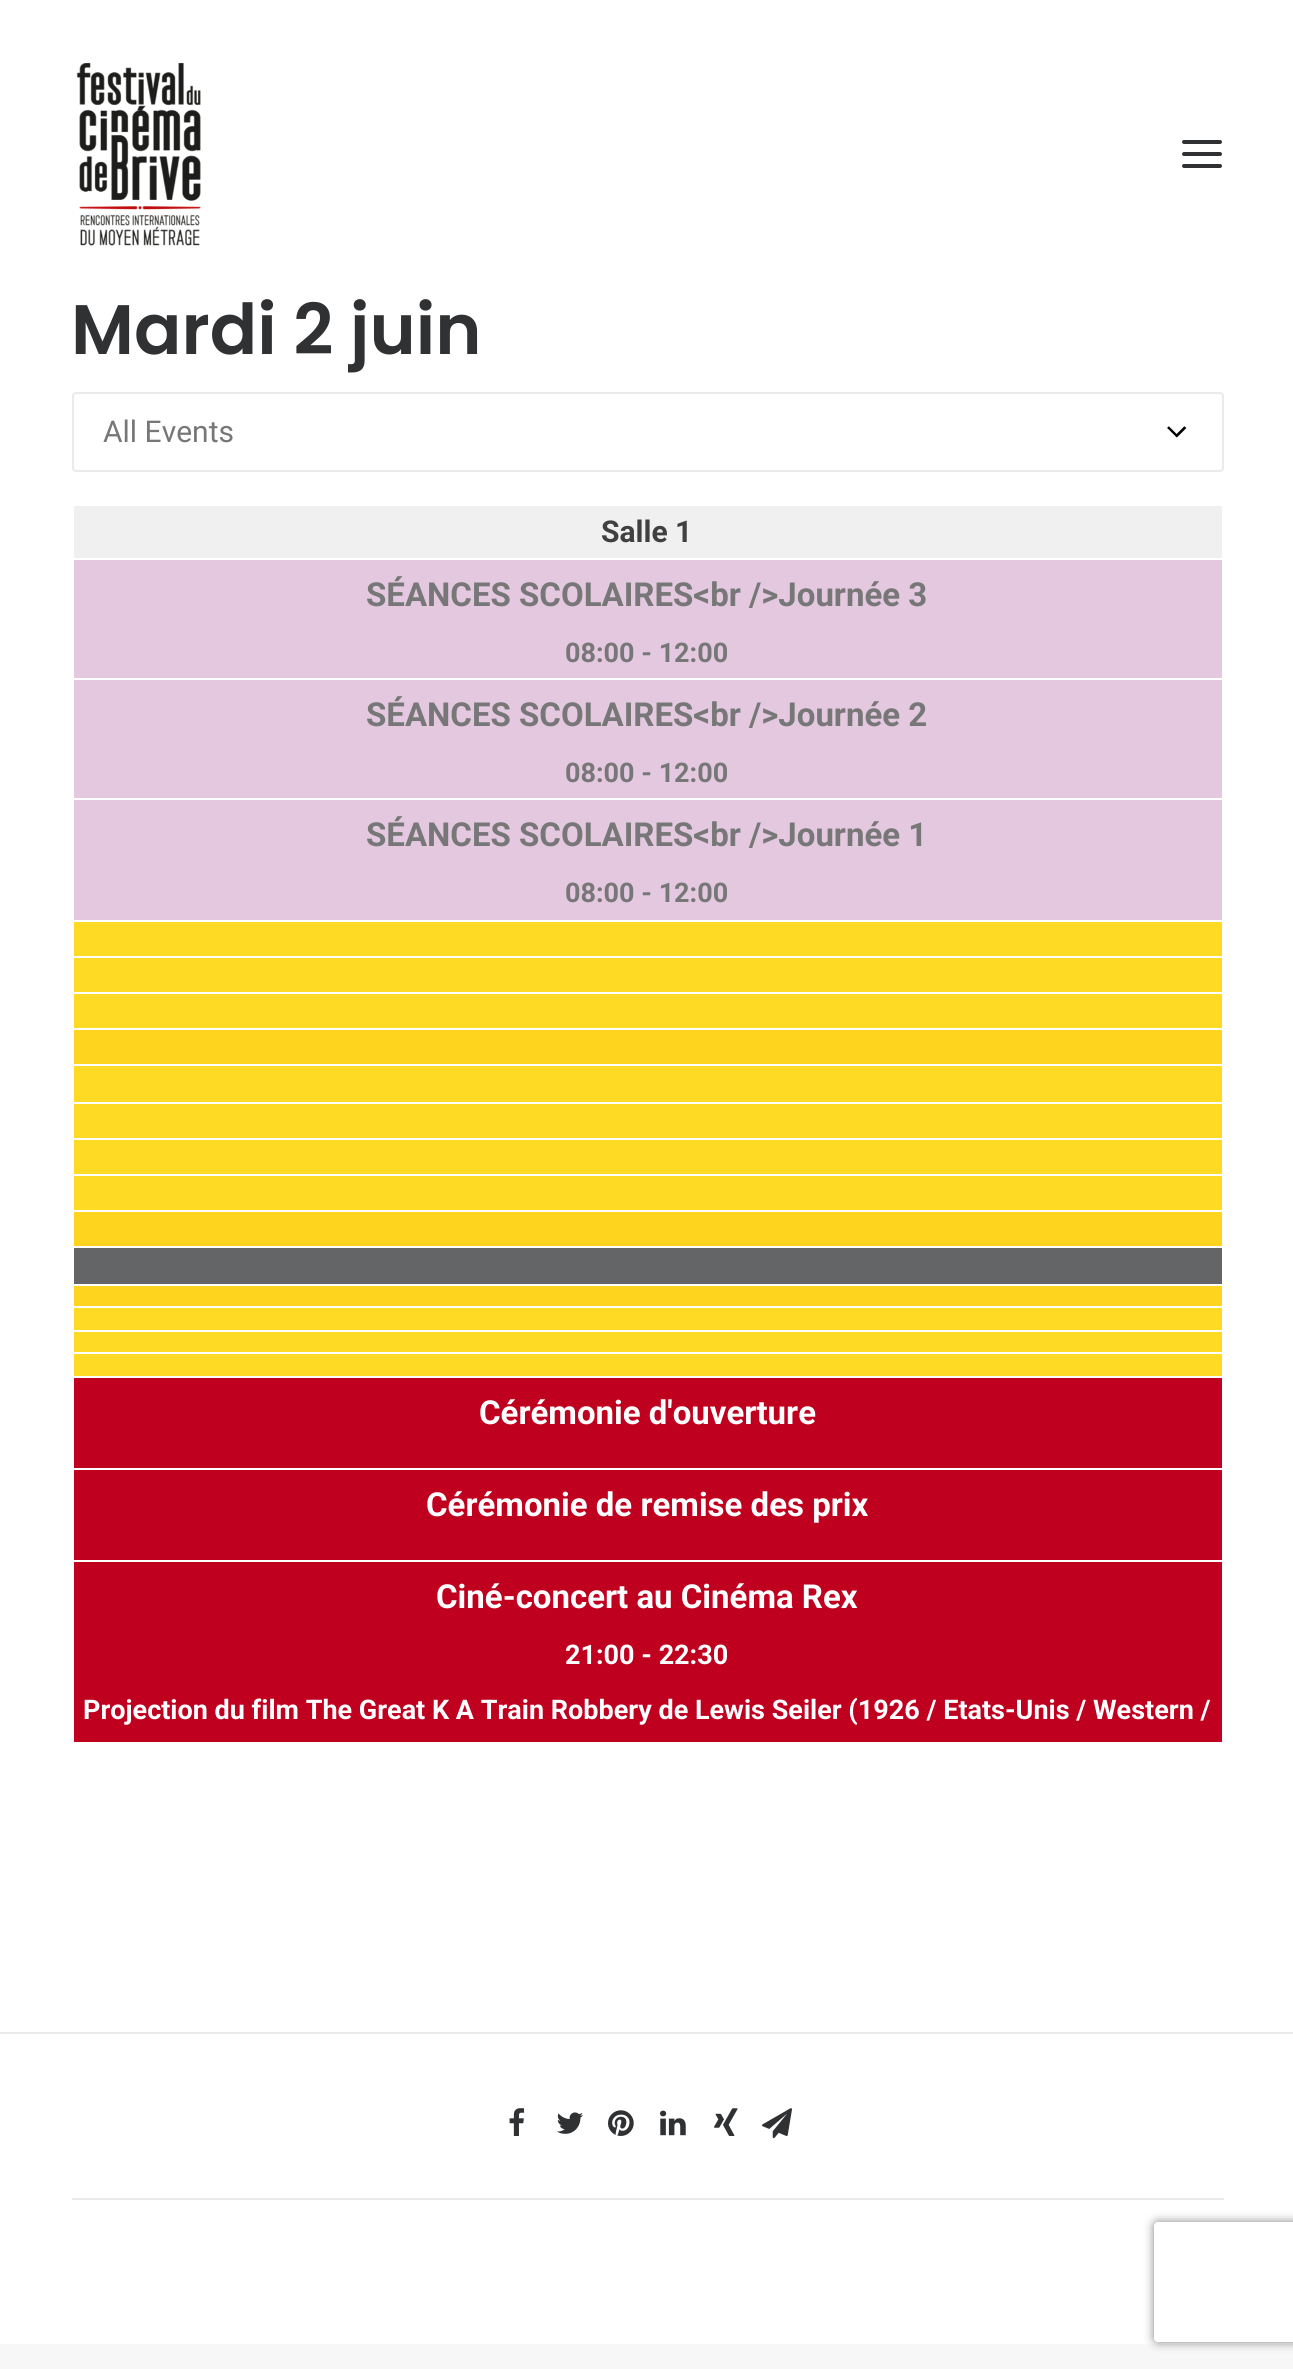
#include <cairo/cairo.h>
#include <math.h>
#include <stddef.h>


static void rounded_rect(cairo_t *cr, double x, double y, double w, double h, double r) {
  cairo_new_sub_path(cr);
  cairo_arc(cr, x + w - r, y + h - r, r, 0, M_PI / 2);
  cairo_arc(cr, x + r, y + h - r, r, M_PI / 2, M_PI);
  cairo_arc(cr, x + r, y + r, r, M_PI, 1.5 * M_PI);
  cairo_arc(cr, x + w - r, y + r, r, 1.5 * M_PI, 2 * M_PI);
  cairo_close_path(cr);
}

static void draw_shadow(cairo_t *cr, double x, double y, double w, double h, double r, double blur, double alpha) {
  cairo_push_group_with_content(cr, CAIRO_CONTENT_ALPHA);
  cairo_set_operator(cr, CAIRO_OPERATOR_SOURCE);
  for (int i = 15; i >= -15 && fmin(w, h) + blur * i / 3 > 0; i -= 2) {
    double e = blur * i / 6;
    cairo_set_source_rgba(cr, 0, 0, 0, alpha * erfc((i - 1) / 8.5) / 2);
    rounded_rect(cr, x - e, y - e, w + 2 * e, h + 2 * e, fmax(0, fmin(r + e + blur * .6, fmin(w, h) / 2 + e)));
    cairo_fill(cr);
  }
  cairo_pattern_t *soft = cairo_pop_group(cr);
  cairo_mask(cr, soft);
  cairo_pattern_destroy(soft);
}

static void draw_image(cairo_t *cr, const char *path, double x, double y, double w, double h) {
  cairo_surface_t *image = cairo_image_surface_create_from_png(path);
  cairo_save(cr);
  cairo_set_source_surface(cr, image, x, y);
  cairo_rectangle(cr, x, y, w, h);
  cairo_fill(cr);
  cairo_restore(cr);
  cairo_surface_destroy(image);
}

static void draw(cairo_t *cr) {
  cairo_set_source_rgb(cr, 1, 1, 1);
  cairo_paint(cr);
  draw_image(cr, "images/1.png", 76, 62, 125, 184);
  cairo_set_source_rgb(cr, 48 / 255.0, 49 / 255.0, 51 / 255.0);
  rounded_rect(cr, 1182, 152, 40, 4, 2);
  cairo_fill(cr);
  rounded_rect(cr, 1182, 140, 40, 4, 2);
  cairo_fill(cr);
  rounded_rect(cr, 1182, 164, 40, 4, 2);
  cairo_fill(cr);
  draw_image(cr, "images/2.png", 1167, 426, 20, 12);
  rounded_rect(cr, 73, 393, 1150, 78, 3);
  cairo_set_source_rgb(cr, 234 / 255.0, 234 / 255.0, 234 / 255.0);
  cairo_stroke(cr);
  cairo_set_source_rgb(cr, 240 / 255.0, 240 / 255.0, 240 / 255.0);
  cairo_rectangle(cr, 74, 506, 1148, 52);
  cairo_fill(cr);
  cairo_set_source_rgb(cr, 227 / 255.0, 200 / 255.0, 223 / 255.0);
  cairo_rectangle(cr, 74, 560, 1148, 118);
  cairo_fill(cr);
  cairo_rectangle(cr, 74, 680, 1148, 118);
  cairo_fill(cr);
  cairo_rectangle(cr, 74, 800, 1148, 120);
  cairo_fill(cr);
  cairo_set_source_rgb(cr, 254 / 255.0, 218 / 255.0, 37 / 255.0);
  cairo_rectangle(cr, 74, 922, 1148, 34);
  cairo_fill(cr);
  cairo_rectangle(cr, 74, 958, 1148, 34);
  cairo_fill(cr);
  cairo_rectangle(cr, 74, 994, 1148, 34);
  cairo_fill(cr);
  cairo_set_source_rgb(cr, 254 / 255.0, 212 / 255.0, 31 / 255.0);
  cairo_rectangle(cr, 74, 1030, 1148, 34);
  cairo_fill(cr);
  cairo_set_source_rgb(cr, 254 / 255.0, 218 / 255.0, 37 / 255.0);
  cairo_rectangle(cr, 74, 1066, 1148, 36);
  cairo_fill(cr);
  cairo_rectangle(cr, 74, 1104, 1148, 34);
  cairo_fill(cr);
  cairo_rectangle(cr, 74, 1140, 1148, 34);
  cairo_fill(cr);
  cairo_rectangle(cr, 74, 1176, 1148, 34);
  cairo_fill(cr);
  cairo_set_source_rgb(cr, 254 / 255.0, 212 / 255.0, 31 / 255.0);
  cairo_rectangle(cr, 74, 1212, 1148, 34);
  cairo_fill(cr);
  cairo_set_source_rgb(cr, 100 / 255.0, 101 / 255.0, 103 / 255.0);
  cairo_rectangle(cr, 74, 1248, 1148, 36);
  cairo_fill(cr);
  cairo_set_source_rgb(cr, 254 / 255.0, 212 / 255.0, 31 / 255.0);
  cairo_rectangle(cr, 74, 1286, 1148, 20);
  cairo_fill(cr);
  cairo_set_source_rgb(cr, 254 / 255.0, 218 / 255.0, 37 / 255.0);
  cairo_rectangle(cr, 74, 1308, 1148, 22);
  cairo_fill(cr);
  cairo_rectangle(cr, 74, 1332, 1148, 20);
  cairo_fill(cr);
  cairo_set_source_rgb(cr, 1, 218 / 255.0, 37 / 255.0);
  cairo_rectangle(cr, 74, 1354, 1148, 22);
  cairo_fill(cr);
  cairo_set_source_rgb(cr, 191 / 255.0, 0, 31 / 255.0);
  cairo_rectangle(cr, 74, 1378, 1148, 90);
  cairo_fill(cr);
  cairo_rectangle(cr, 74, 1470, 1148, 90);
  cairo_fill(cr);
  cairo_rectangle(cr, 74, 1562, 1148, 180);
  cairo_fill(cr);
  cairo_set_source_rgb(cr, 234 / 255.0, 234 / 255.0, 234 / 255.0);
  cairo_rectangle(cr, 0, 2032, 1293, 2);
  cairo_fill(cr);
  cairo_rectangle(cr, 72, 2198, 1152, 2);
  cairo_fill(cr);
  draw_image(cr, "images/3.png", 509, 2108, 16, 28);
  draw_image(cr, "images/4.png", 557, 2112, 26, 22);
  draw_image(cr, "images/5.png", 608, 2110, 26, 26);
  draw_image(cr, "images/6.png", 660, 2110, 26, 26);
  draw_image(cr, "images/7.png", 714, 2108, 24, 28);
  draw_image(cr, "images/8.png", 762, 2108, 30, 31);
  cairo_set_source_rgb(cr, 247 / 255.0, 247 / 255.0, 247 / 255.0);
  cairo_rectangle(cr, 0, 2344, 1293, 25);
  cairo_fill(cr);
  cairo_save(cr);
  cairo_set_fill_rule(cr, CAIRO_FILL_RULE_EVEN_ODD);
  cairo_new_path(cr);
  cairo_move_to(cr, 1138, 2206);
  cairo_line_to(cr, 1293, 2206);
  cairo_line_to(cr, 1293, 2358);
  cairo_line_to(cr, 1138, 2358);
  cairo_close_path(cr);
  cairo_move_to(cr, 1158, 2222);
  cairo_line_to(cr, 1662, 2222);
  cairo_curve_to(cr, 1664, 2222, 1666, 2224, 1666, 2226);
  cairo_line_to(cr, 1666, 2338);
  cairo_curve_to(cr, 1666, 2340, 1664, 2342, 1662, 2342);
  cairo_line_to(cr, 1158, 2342);
  cairo_curve_to(cr, 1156, 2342, 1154, 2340, 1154, 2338);
  cairo_line_to(cr, 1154, 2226);
  cairo_curve_to(cr, 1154, 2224, 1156, 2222, 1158, 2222);
  cairo_close_path(cr);
  cairo_clip(cr);
  cairo_set_source_rgb(cr, 128 / 255.0, 128 / 255.0, 128 / 255.0);
  draw_shadow(cr, 1154, 2222, 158, 120, 4, 5, 1);
  cairo_restore(cr);
  cairo_select_font_face(cr, "Poppins SemiBold", CAIRO_FONT_SLANT_NORMAL, CAIRO_FONT_WEIGHT_NORMAL);
  cairo_set_font_size(cr, 70);
  cairo_set_source_rgb(cr, 48 / 255.0, 49 / 255.0, 51 / 255.0);
  cairo_move_to(cr, 71, 354);
  cairo_show_text(cr, "Mardi 2 juin");
  cairo_select_font_face(cr, "Roboto", CAIRO_FONT_SLANT_NORMAL, CAIRO_FONT_WEIGHT_NORMAL);
  cairo_set_font_size(cr, 30);
  cairo_set_source_rgb(cr, 119 / 255.0, 119 / 255.0, 119 / 255.0);
  cairo_move_to(cr, 103, 442);
  cairo_show_text(cr, "All Events");
  cairo_select_font_face(cr, "Roboto", CAIRO_FONT_SLANT_NORMAL, CAIRO_FONT_WEIGHT_BOLD);
  cairo_set_source_rgb(cr, 64 / 255.0, 64 / 255.0, 64 / 255.0);
  cairo_move_to(cr, 601, 542);
  cairo_show_text(cr, "Salle 1");
  cairo_set_font_size(cr, 33);
  cairo_set_source_rgb(cr, 119 / 255.0, 119 / 255.0, 119 / 255.0);
  cairo_move_to(cr, 366, 606);
  cairo_show_text(cr, "SÉANCES SCOLAIRES<br />Journée 3");
  cairo_set_font_size(cr, 27);
  cairo_move_to(cr, 565, 662);
  cairo_show_text(cr, "08:00 - 12:00");
  cairo_set_font_size(cr, 33);
  cairo_move_to(cr, 366, 726);
  cairo_show_text(cr, "SÉANCES SCOLAIRES<br />Journée 2");
  cairo_set_font_size(cr, 27);
  cairo_move_to(cr, 565, 782);
  cairo_show_text(cr, "08:00 - 12:00");
  cairo_set_font_size(cr, 33);
  cairo_move_to(cr, 366, 846);
  cairo_show_text(cr, "SÉANCES SCOLAIRES<br />Journée 1");
  cairo_set_font_size(cr, 27);
  cairo_move_to(cr, 565, 902);
  cairo_show_text(cr, "08:00 - 12:00");
  cairo_set_font_size(cr, 33);
  cairo_set_source_rgb(cr, 1, 1, 1);
  cairo_move_to(cr, 479, 1424);
  cairo_show_text(cr, "Cérémonie d'ouverture");
  cairo_move_to(cr, 426, 1516);
  cairo_show_text(cr, "Cérémonie de remise des prix");
  cairo_move_to(cr, 436, 1608);
  cairo_show_text(cr, "Ciné-concert au Cinéma Rex");
  cairo_set_font_size(cr, 27);
  cairo_move_to(cr, 565, 1664);
  cairo_show_text(cr, "21:00 - 22:30");
  cairo_move_to(cr, 83, 1719);
  cairo_show_text(cr, "Projection du film The Great K A Train Robbery de Lewis Seiler (1926 / Etats-Unis / Western /");
}

int main(void) {
  cairo_surface_t *surface = cairo_image_surface_create(CAIRO_FORMAT_RGB24, 1293, 2369);
  cairo_t *cr = cairo_create(surface);
  cairo_font_options_t *options = cairo_font_options_create();
  cairo_font_options_set_hint_metrics(options, CAIRO_HINT_METRICS_OFF);
  cairo_font_options_set_hint_style(options, CAIRO_HINT_STYLE_NONE);
  cairo_set_font_options(cr, options);
  cairo_set_miter_limit(cr, 4);
  draw(cr);
  cairo_surface_write_to_png(surface, "out.png");
  cairo_font_options_destroy(options);
  cairo_destroy(cr);
  cairo_surface_destroy(surface);
  return 0;
}
